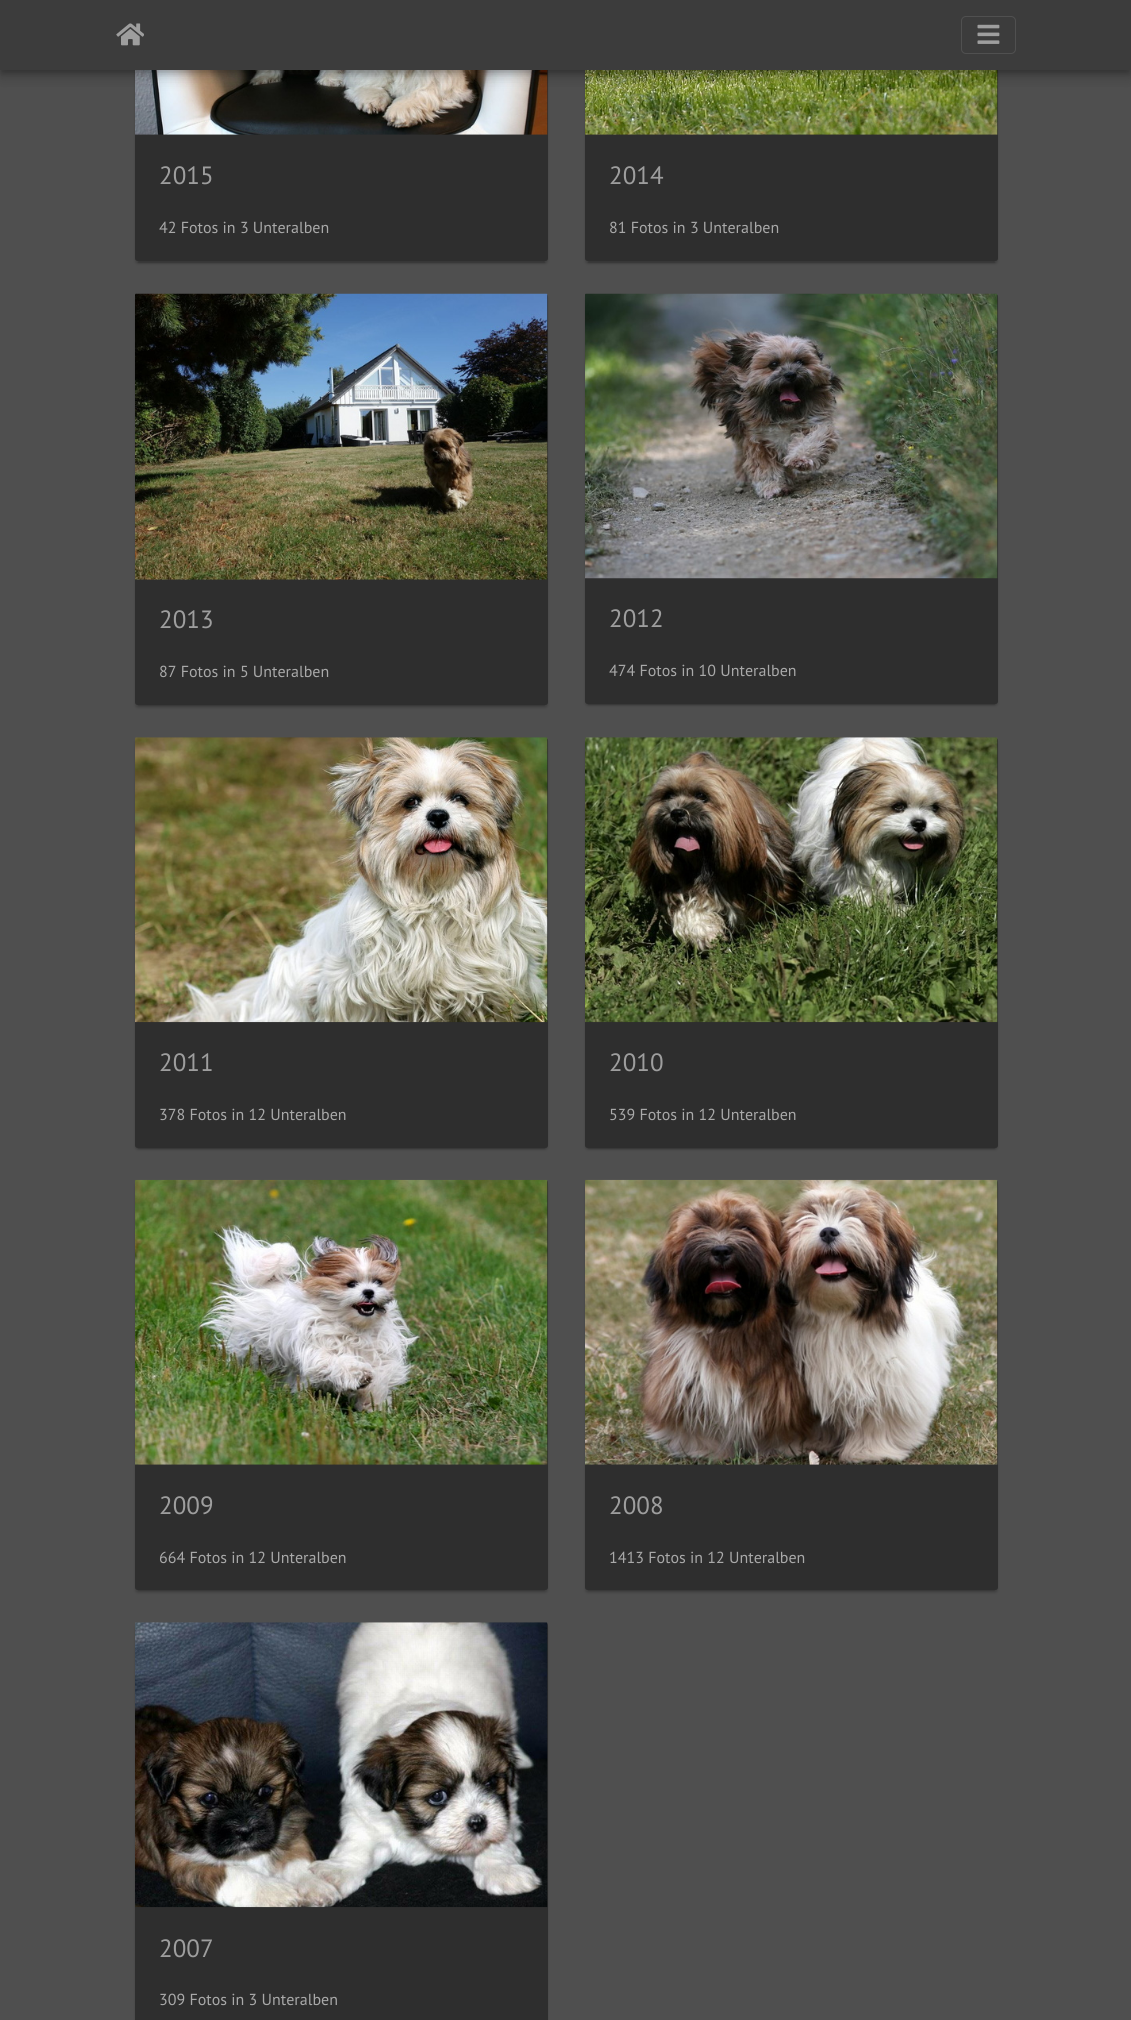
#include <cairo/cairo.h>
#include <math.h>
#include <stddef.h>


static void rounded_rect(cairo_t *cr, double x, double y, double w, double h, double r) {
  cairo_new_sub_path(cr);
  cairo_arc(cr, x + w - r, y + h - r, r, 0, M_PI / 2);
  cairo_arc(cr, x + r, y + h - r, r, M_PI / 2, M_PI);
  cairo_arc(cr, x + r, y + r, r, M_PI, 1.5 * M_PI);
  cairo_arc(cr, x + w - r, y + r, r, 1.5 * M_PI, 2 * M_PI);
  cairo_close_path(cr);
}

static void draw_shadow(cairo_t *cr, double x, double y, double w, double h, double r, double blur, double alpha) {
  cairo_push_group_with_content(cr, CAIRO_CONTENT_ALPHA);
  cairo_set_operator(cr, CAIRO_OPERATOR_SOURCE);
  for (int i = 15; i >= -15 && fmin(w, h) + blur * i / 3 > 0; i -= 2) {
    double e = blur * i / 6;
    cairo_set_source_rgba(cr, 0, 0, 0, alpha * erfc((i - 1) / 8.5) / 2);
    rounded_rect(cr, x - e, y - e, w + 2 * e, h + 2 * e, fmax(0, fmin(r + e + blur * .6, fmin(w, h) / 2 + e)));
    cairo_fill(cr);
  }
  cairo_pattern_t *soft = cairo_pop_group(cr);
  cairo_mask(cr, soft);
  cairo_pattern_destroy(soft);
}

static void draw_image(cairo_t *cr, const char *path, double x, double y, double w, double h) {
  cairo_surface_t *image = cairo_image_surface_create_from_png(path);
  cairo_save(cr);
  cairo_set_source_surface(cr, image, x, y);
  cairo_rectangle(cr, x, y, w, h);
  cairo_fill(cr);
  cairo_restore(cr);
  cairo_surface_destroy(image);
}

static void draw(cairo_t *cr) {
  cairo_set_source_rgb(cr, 79 / 255.0, 79 / 255.0, 79 / 255.0);
  cairo_paint(cr);
  cairo_set_source_rgb(cr, 0, 0, 0);
  draw_shadow(cr, 138, -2, 407, 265, 0, 0.5, 0.2);
  draw_shadow(cr, 135, -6, 413, 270, 2.5, 1, 0.14);
  cairo_set_source_rgb(cr, 46 / 255.0, 46 / 255.0, 46 / 255.0);
  rounded_rect(cr, 135, -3, 413, 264, 2.5);
  cairo_fill(cr);
  draw_image(cr, "images/3.png", 135, 70, 413, 65);
  cairo_set_source_rgb(cr, 0, 0, 0);
  draw_shadow(cr, 588, -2, 407, 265, 0, 0.5, 0.2);
  draw_shadow(cr, 585, -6, 413, 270, 2.5, 1, 0.14);
  cairo_set_source_rgb(cr, 46 / 255.0, 46 / 255.0, 46 / 255.0);
  rounded_rect(cr, 585, -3, 413, 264, 2.5);
  cairo_fill(cr);
  draw_image(cr, "images/4.png", 585, 70, 413, 65);
  cairo_set_source_rgb(cr, 0, 0, 0);
  draw_shadow(cr, 1, 5, 1129, 68, 0, 3, 0.2);
  draw_shadow(cr, 0, 1, 1131, 70, 0, 11, 0.12);
  draw_shadow(cr, 0, 8, 1131, 70, 0, 6, 0.14);
  cairo_set_source_rgb(cr, 60 / 255.0, 60 / 255.0, 60 / 255.0);
  cairo_rectangle(cr, 0, 0, 1131, 70);
  cairo_fill(cr);
  draw_image(cr, "images/1.png", 116, 23, 28, 23);
  rounded_rect(cr, 961.5, 16.5, 54, 37, 4.5);
  cairo_set_source_rgb(cr, 80 / 255.0, 80 / 255.0, 80 / 255.0);
  cairo_set_line_width(cr, 1);
  cairo_stroke(cr);
  draw_image(cr, "images/2.png", 977, 24, 23, 20);
  cairo_set_source_rgb(cr, 0, 0, 0);
  draw_shadow(cr, 138, 300, 407, 406, 0, 0.5, 0.2);
  draw_shadow(cr, 135, 296, 413, 412, 2.5, 1, 0.14);
  cairo_set_source_rgb(cr, 46 / 255.0, 46 / 255.0, 46 / 255.0);
  rounded_rect(cr, 135, 294, 413, 411, 2.5);
  cairo_fill(cr);
  draw_image(cr, "images/5.png", 135, 293, 413, 287);
  cairo_set_source_rgb(cr, 0, 0, 0);
  draw_shadow(cr, 588, 300, 407, 405, 0, 0.5, 0.2);
  draw_shadow(cr, 585, 296, 413, 410, 2.5, 1, 0.14);
  cairo_set_source_rgb(cr, 46 / 255.0, 46 / 255.0, 46 / 255.0);
  rounded_rect(cr, 585, 294, 413, 410, 2.5);
  cairo_fill(cr);
  draw_image(cr, "images/6.png", 585, 293, 413, 286);
  cairo_set_source_rgb(cr, 0, 0, 0);
  draw_shadow(cr, 138, 744, 407, 405, 0, 0.5, 0.2);
  draw_shadow(cr, 135, 740, 413, 410, 2.5, 1, 0.14);
  cairo_set_source_rgb(cr, 46 / 255.0, 46 / 255.0, 46 / 255.0);
  rounded_rect(cr, 135, 738, 413, 410, 2.5);
  cairo_fill(cr);
  draw_image(cr, "images/7.png", 135, 737, 413, 286);
  cairo_set_source_rgb(cr, 0, 0, 0);
  draw_shadow(cr, 588, 744, 407, 405, 0, 0.5, 0.2);
  draw_shadow(cr, 585, 740, 413, 410, 2.5, 1, 0.14);
  cairo_set_source_rgb(cr, 46 / 255.0, 46 / 255.0, 46 / 255.0);
  rounded_rect(cr, 585, 738, 413, 410, 2.5);
  cairo_fill(cr);
  draw_image(cr, "images/8.png", 585, 737, 413, 286);
  cairo_set_source_rgb(cr, 0, 0, 0);
  draw_shadow(cr, 138, 1186, 407, 405, 0, 0.5, 0.2);
  draw_shadow(cr, 135, 1183, 413, 410, 2.5, 1, 0.14);
  cairo_set_source_rgb(cr, 46 / 255.0, 46 / 255.0, 46 / 255.0);
  rounded_rect(cr, 135, 1180, 413, 410, 2.5);
  cairo_fill(cr);
  draw_image(cr, "images/9.png", 135, 1179, 413, 286);
  cairo_set_source_rgb(cr, 0, 0, 0);
  draw_shadow(cr, 588, 1186, 407, 405, 0, 0.5, 0.2);
  draw_shadow(cr, 585, 1183, 413, 410, 2.5, 1, 0.14);
  cairo_set_source_rgb(cr, 46 / 255.0, 46 / 255.0, 46 / 255.0);
  rounded_rect(cr, 585, 1180, 413, 410, 2.5);
  cairo_fill(cr);
  draw_image(cr, "images/10.png", 585, 1179, 413, 286);
  cairo_set_source_rgb(cr, 0, 0, 0);
  draw_shadow(cr, 135, 1625, 413, 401, 2.5, 1, 0.14);
  cairo_set_source_rgb(cr, 46 / 255.0, 46 / 255.0, 46 / 255.0);
  rounded_rect(cr, 135, 1623, 413, 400, 2.5);
  cairo_fill(cr);
  draw_image(cr, "images/11.png", 135, 1622, 413, 286);
  cairo_select_font_face(cr, "PT Sans", CAIRO_FONT_SLANT_NORMAL, CAIRO_FONT_WEIGHT_NORMAL);
  cairo_set_font_size(cr, 25);
  cairo_set_source_rgb(cr, 158 / 255.0, 158 / 255.0, 158 / 255.0);
  cairo_move_to(cr, 159, 184);
  cairo_show_text(cr, "2015");
  cairo_set_font_size(cr, 16);
  cairo_set_source_rgb(cr, 169 / 255.0, 169 / 255.0, 169 / 255.0);
  cairo_move_to(cr, 159, 233);
  cairo_show_text(cr, "42 Fotos in 3 Unteralben");
  cairo_set_font_size(cr, 25);
  cairo_set_source_rgb(cr, 158 / 255.0, 158 / 255.0, 158 / 255.0);
  cairo_move_to(cr, 609, 184);
  cairo_show_text(cr, "2014");
  cairo_set_font_size(cr, 16);
  cairo_set_source_rgb(cr, 169 / 255.0, 169 / 255.0, 169 / 255.0);
  cairo_move_to(cr, 609, 233);
  cairo_show_text(cr, "81 Fotos in 3 Unteralben");
  cairo_set_font_size(cr, 25);
  cairo_set_source_rgb(cr, 158 / 255.0, 158 / 255.0, 158 / 255.0);
  cairo_move_to(cr, 159, 628);
  cairo_show_text(cr, "2013");
  cairo_set_font_size(cr, 16);
  cairo_set_source_rgb(cr, 169 / 255.0, 169 / 255.0, 169 / 255.0);
  cairo_move_to(cr, 159, 677);
  cairo_show_text(cr, "87 Fotos in 5 Unteralben");
  cairo_set_font_size(cr, 25);
  cairo_set_source_rgb(cr, 158 / 255.0, 158 / 255.0, 158 / 255.0);
  cairo_move_to(cr, 609, 627);
  cairo_show_text(cr, "2012");
  cairo_set_font_size(cr, 16);
  cairo_set_source_rgb(cr, 169 / 255.0, 169 / 255.0, 169 / 255.0);
  cairo_move_to(cr, 609, 676);
  cairo_show_text(cr, "474 Fotos in 10 Unteralben");
  cairo_set_font_size(cr, 25);
  cairo_set_source_rgb(cr, 158 / 255.0, 158 / 255.0, 158 / 255.0);
  cairo_move_to(cr, 159, 1071);
  cairo_show_text(cr, "2011");
  cairo_set_font_size(cr, 16);
  cairo_set_source_rgb(cr, 169 / 255.0, 169 / 255.0, 169 / 255.0);
  cairo_move_to(cr, 159, 1120);
  cairo_show_text(cr, "378 Fotos in 12 Unteralben");
  cairo_set_font_size(cr, 25);
  cairo_set_source_rgb(cr, 158 / 255.0, 158 / 255.0, 158 / 255.0);
  cairo_move_to(cr, 609, 1071);
  cairo_show_text(cr, "2010");
  cairo_set_font_size(cr, 16);
  cairo_set_source_rgb(cr, 169 / 255.0, 169 / 255.0, 169 / 255.0);
  cairo_move_to(cr, 609, 1120);
  cairo_show_text(cr, "539 Fotos in 12 Unteralben");
  cairo_set_font_size(cr, 25);
  cairo_set_source_rgb(cr, 158 / 255.0, 158 / 255.0, 158 / 255.0);
  cairo_move_to(cr, 159, 1514);
  cairo_show_text(cr, "2009");
  cairo_set_font_size(cr, 16);
  cairo_set_source_rgb(cr, 169 / 255.0, 169 / 255.0, 169 / 255.0);
  cairo_move_to(cr, 159, 1563);
  cairo_show_text(cr, "664 Fotos in 12 Unteralben");
  cairo_set_font_size(cr, 25);
  cairo_set_source_rgb(cr, 158 / 255.0, 158 / 255.0, 158 / 255.0);
  cairo_move_to(cr, 609, 1514);
  cairo_show_text(cr, "2008");
  cairo_set_font_size(cr, 16);
  cairo_set_source_rgb(cr, 169 / 255.0, 169 / 255.0, 169 / 255.0);
  cairo_move_to(cr, 609, 1563);
  cairo_show_text(cr, "1413 Fotos in 12 Unteralben");
  cairo_set_font_size(cr, 25);
  cairo_set_source_rgb(cr, 158 / 255.0, 158 / 255.0, 158 / 255.0);
  cairo_move_to(cr, 159, 1957);
  cairo_show_text(cr, "2007");
  cairo_set_font_size(cr, 16);
  cairo_set_source_rgb(cr, 169 / 255.0, 169 / 255.0, 169 / 255.0);
  cairo_move_to(cr, 159, 2005);
  cairo_show_text(cr, "309 Fotos in 3 Unteralben");
}

int main(void) {
  cairo_surface_t *surface = cairo_image_surface_create(CAIRO_FORMAT_RGB24, 1131, 2020);
  cairo_t *cr = cairo_create(surface);
  cairo_font_options_t *options = cairo_font_options_create();
  cairo_font_options_set_hint_metrics(options, CAIRO_HINT_METRICS_OFF);
  cairo_font_options_set_hint_style(options, CAIRO_HINT_STYLE_NONE);
  cairo_set_font_options(cr, options);
  cairo_set_miter_limit(cr, 4);
  draw(cr);
  cairo_surface_write_to_png(surface, "out.png");
  cairo_font_options_destroy(options);
  cairo_destroy(cr);
  cairo_surface_destroy(surface);
  return 0;
}
